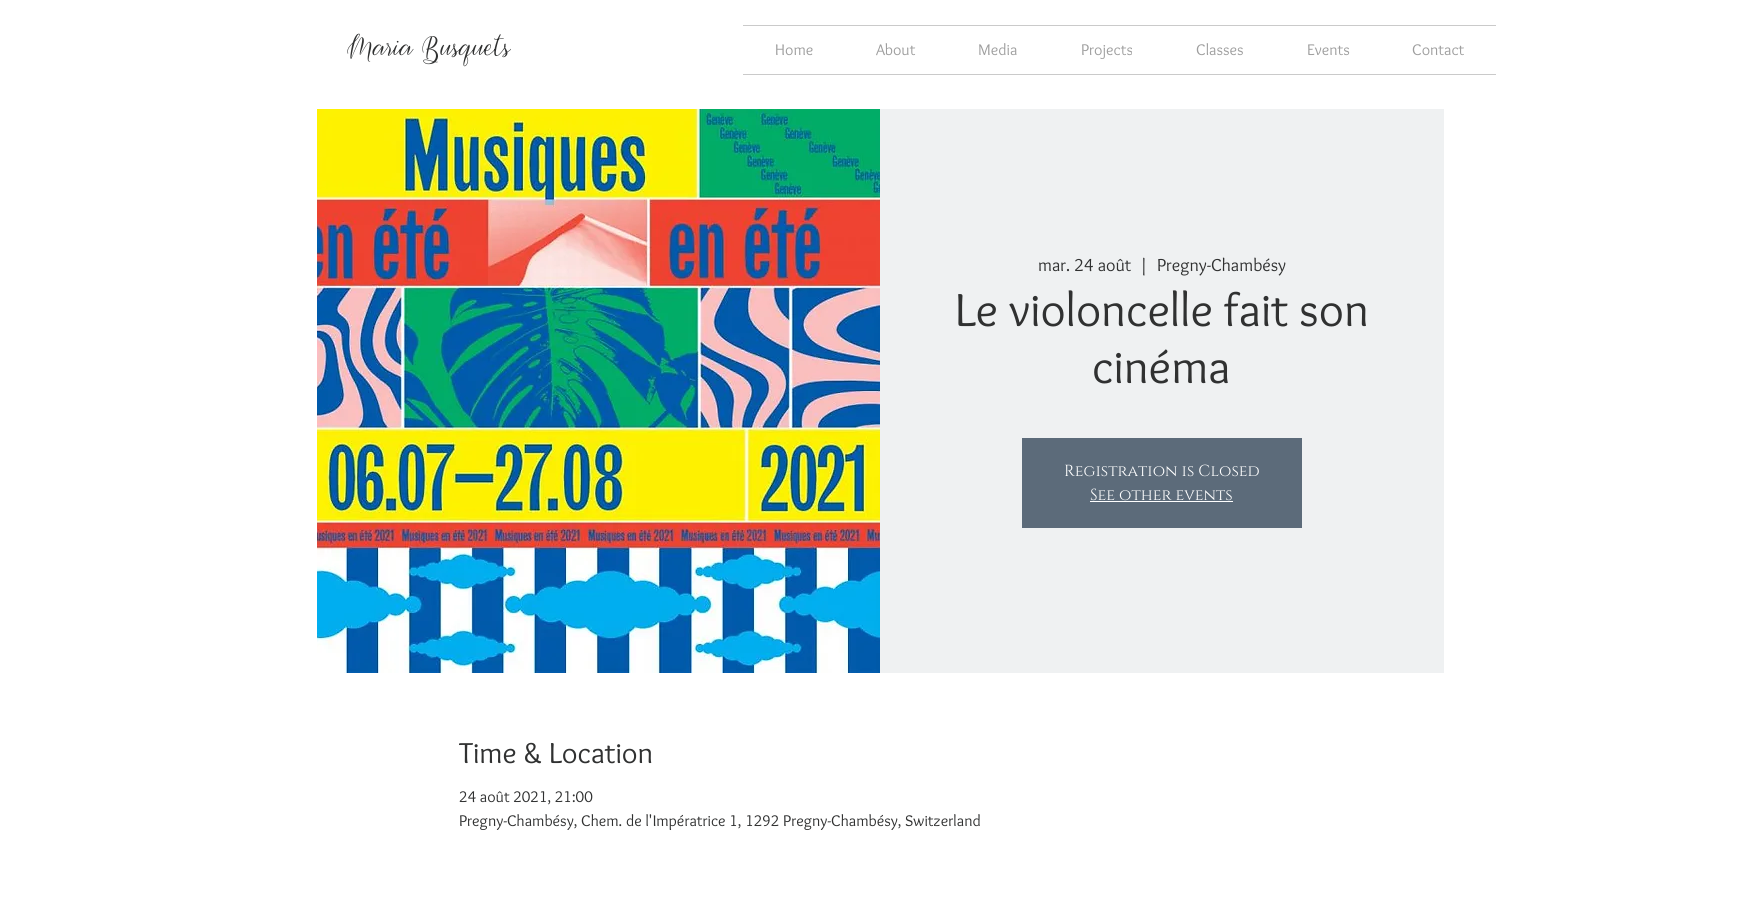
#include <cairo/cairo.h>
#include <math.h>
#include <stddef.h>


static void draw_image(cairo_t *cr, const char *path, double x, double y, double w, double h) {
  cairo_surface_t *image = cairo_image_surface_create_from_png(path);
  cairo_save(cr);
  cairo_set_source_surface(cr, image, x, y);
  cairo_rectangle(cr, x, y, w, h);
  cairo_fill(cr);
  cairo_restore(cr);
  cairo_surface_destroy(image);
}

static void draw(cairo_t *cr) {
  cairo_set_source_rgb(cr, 1, 1, 1);
  cairo_paint(cr);
  cairo_set_source_rgb(cr, 202 / 255.0, 202 / 255.0, 202 / 255.0);
  cairo_rectangle(cr, 743, 25, 753, 1);
  cairo_fill(cr);
  cairo_rectangle(cr, 743, 74, 753, 1);
  cairo_fill(cr);
  draw_image(cr, "images/1.png", 317, 109, 563, 564);
  cairo_set_source_rgb(cr, 239 / 255.0, 241 / 255.0, 242 / 255.0);
  cairo_rectangle(cr, 880, 109, 564, 564);
  cairo_fill(cr);
  cairo_set_source_rgb(cr, 92 / 255.0, 107 / 255.0, 122 / 255.0);
  cairo_rectangle(cr, 1022, 438, 280, 90);
  cairo_fill(cr);
  cairo_set_source_rgb(cr, 1, 1, 1);
  cairo_rectangle(cr, 1090, 501, 143, 1);
  cairo_fill(cr);
  cairo_select_font_face(cr, "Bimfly", CAIRO_FONT_SLANT_NORMAL, CAIRO_FONT_WEIGHT_NORMAL);
  cairo_set_font_size(cr, 37);
  cairo_set_source_rgb(cr, 48 / 255.0, 49 / 255.0, 49 / 255.0);
  cairo_move_to(cr, 347, 59);
  cairo_show_text(cr, "Maria Busquets");
  cairo_select_font_face(cr, "Overlock", CAIRO_FONT_SLANT_NORMAL, CAIRO_FONT_WEIGHT_NORMAL);
  cairo_set_font_size(cr, 16);
  cairo_set_source_rgb(cr, 158 / 255.0, 158 / 255.0, 158 / 255.0);
  cairo_move_to(cr, 775, 55);
  cairo_show_text(cr, "Home");
  cairo_move_to(cr, 876, 55);
  cairo_show_text(cr, "About");
  cairo_move_to(cr, 978, 55);
  cairo_show_text(cr, "Media");
  cairo_move_to(cr, 1081, 55);
  cairo_show_text(cr, "Projects");
  cairo_move_to(cr, 1196, 55);
  cairo_show_text(cr, "Classes");
  cairo_move_to(cr, 1307, 55);
  cairo_show_text(cr, "Events");
  cairo_move_to(cr, 1412, 55);
  cairo_show_text(cr, "Contact");
  cairo_set_font_size(cr, 18);
  cairo_set_source_rgb(cr, 48 / 255.0, 49 / 255.0, 49 / 255.0);
  cairo_move_to(cr, 1038, 271);
  cairo_show_text(cr, "mar. 24 août");
  cairo_move_to(cr, 1139, 271);
  cairo_show_text(cr, "|");
  cairo_move_to(cr, 1157, 271);
  cairo_show_text(cr, "Pregny-Chambésy");
  cairo_set_font_size(cr, 48);
  cairo_move_to(cr, 955, 326);
  cairo_show_text(cr, "Le violoncelle fait son");
  cairo_move_to(cr, 1092, 383);
  cairo_show_text(cr, "cinéma");
  cairo_select_font_face(cr, "Cinzel", CAIRO_FONT_SLANT_NORMAL, CAIRO_FONT_WEIGHT_NORMAL);
  cairo_set_font_size(cr, 16);
  cairo_set_source_rgb(cr, 1, 1, 1);
  cairo_move_to(cr, 1064, 476);
  cairo_show_text(cr, "Registration is Closed");
  cairo_move_to(cr, 1090, 500);
  cairo_show_text(cr, "See other events");
  cairo_select_font_face(cr, "Overlock", CAIRO_FONT_SLANT_NORMAL, CAIRO_FONT_WEIGHT_NORMAL);
  cairo_set_font_size(cr, 30);
  cairo_set_source_rgb(cr, 48 / 255.0, 49 / 255.0, 49 / 255.0);
  cairo_move_to(cr, 459, 763);
  cairo_show_text(cr, "Time & Location");
  cairo_set_font_size(cr, 16);
  cairo_move_to(cr, 459, 802);
  cairo_show_text(cr, "24 août 2021, 21:00");
  cairo_move_to(cr, 459, 826);
  cairo_show_text(cr, "Pregny-Chambésy, Chem. de l'Impératrice 1, 1292 Pregny-Chambésy, Switzerland");
}

int main(void) {
  cairo_surface_t *surface = cairo_image_surface_create(CAIRO_FORMAT_RGB24, 1760, 909);
  cairo_t *cr = cairo_create(surface);
  cairo_font_options_t *options = cairo_font_options_create();
  cairo_font_options_set_hint_metrics(options, CAIRO_HINT_METRICS_OFF);
  cairo_font_options_set_hint_style(options, CAIRO_HINT_STYLE_NONE);
  cairo_set_font_options(cr, options);
  cairo_set_miter_limit(cr, 4);
  draw(cr);
  cairo_surface_write_to_png(surface, "out.png");
  cairo_font_options_destroy(options);
  cairo_destroy(cr);
  cairo_surface_destroy(surface);
  return 0;
}
